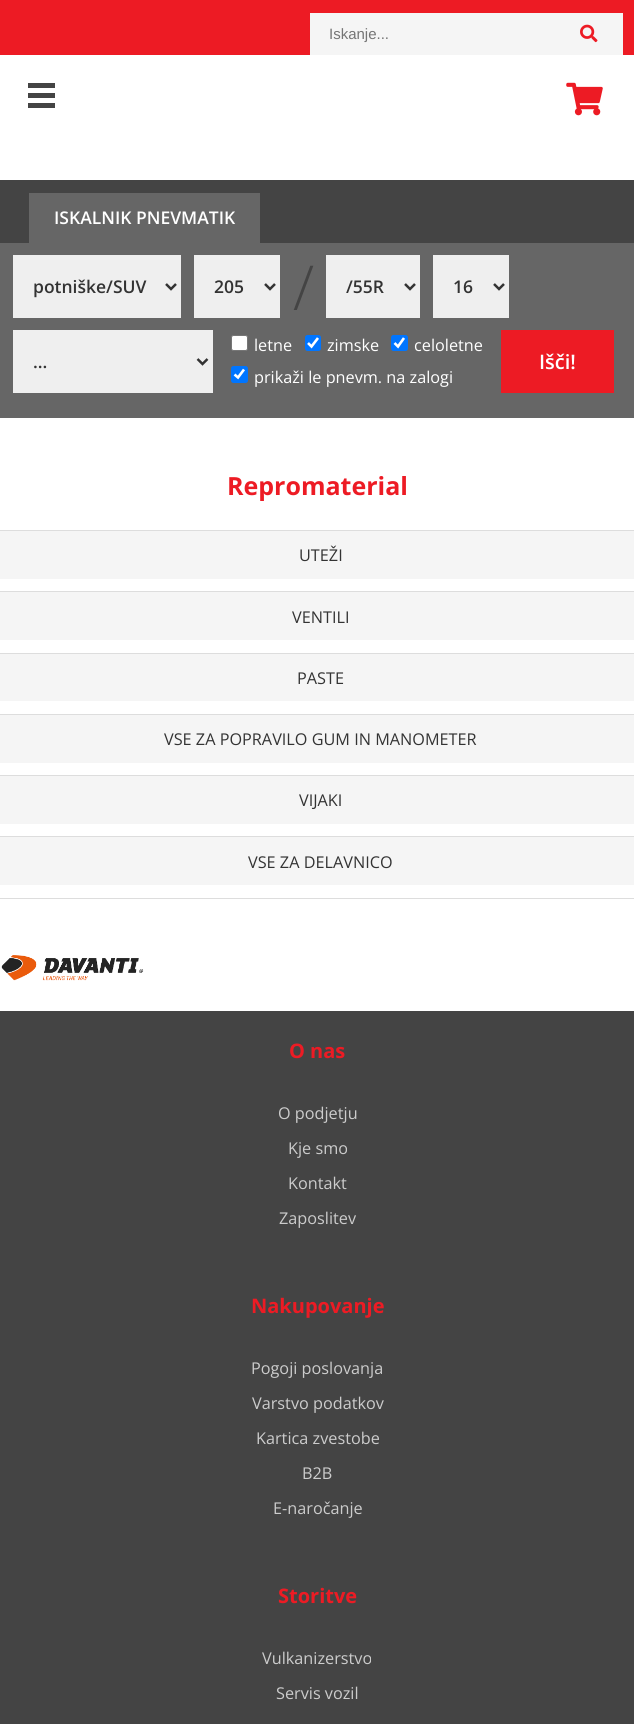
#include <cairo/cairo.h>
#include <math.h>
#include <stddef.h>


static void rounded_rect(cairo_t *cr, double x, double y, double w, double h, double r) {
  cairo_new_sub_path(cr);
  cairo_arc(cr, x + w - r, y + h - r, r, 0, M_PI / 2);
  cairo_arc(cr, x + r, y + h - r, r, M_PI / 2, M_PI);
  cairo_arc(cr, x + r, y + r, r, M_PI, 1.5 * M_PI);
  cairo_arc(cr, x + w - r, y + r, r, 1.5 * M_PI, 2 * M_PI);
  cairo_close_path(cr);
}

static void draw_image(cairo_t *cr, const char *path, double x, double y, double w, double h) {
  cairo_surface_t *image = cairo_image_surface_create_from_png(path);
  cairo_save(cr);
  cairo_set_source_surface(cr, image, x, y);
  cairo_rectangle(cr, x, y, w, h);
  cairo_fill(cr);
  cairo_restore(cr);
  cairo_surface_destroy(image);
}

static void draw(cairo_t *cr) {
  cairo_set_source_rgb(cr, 1, 1, 1);
  cairo_paint(cr);
  cairo_set_source_rgb(cr, 237 / 255.0, 27 / 255.0, 36 / 255.0);
  cairo_rectangle(cr, 0, 0, 634, 55);
  cairo_fill(cr);
  cairo_set_source_rgb(cr, 245 / 255.0, 245 / 255.0, 245 / 255.0);
  cairo_rectangle(cr, 310, 13, 313, 42);
  cairo_fill(cr);
  draw_image(cr, "images/1.png", 580, 24, 18, 19);
  cairo_set_source_rgb(cr, 68 / 255.0, 68 / 255.0, 68 / 255.0);
  cairo_rectangle(cr, 28, 83, 27, 5);
  cairo_fill(cr);
  cairo_rectangle(cr, 28, 93, 27, 5);
  cairo_fill(cr);
  cairo_rectangle(cr, 28, 103, 27, 5);
  cairo_fill(cr);
  draw_image(cr, "images/2.png", 566, 82, 37, 34);
  cairo_rectangle(cr, 0, 180, 634, 63);
  cairo_fill(cr);
  cairo_set_source_rgb(cr, 102 / 255.0, 102 / 255.0, 102 / 255.0);
  cairo_rectangle(cr, 0, 243, 634, 175);
  cairo_fill(cr);
  cairo_rectangle(cr, 29, 193, 231, 50);
  cairo_fill(cr);
  cairo_set_source_rgb(cr, 239 / 255.0, 239 / 255.0, 239 / 255.0);
  cairo_rectangle(cr, 13, 255, 168, 63);
  cairo_fill(cr);
  cairo_new_path(cr);
  cairo_move_to(cr, 166, 284);
  cairo_line_to(cr, 171, 289);
  cairo_line_to(cr, 176, 284);
  cairo_set_source_rgb(cr, 51 / 255.0, 51 / 255.0, 51 / 255.0);
  cairo_set_line_width(cr, 2.5);
  cairo_stroke(cr);
  cairo_set_source_rgb(cr, 239 / 255.0, 239 / 255.0, 239 / 255.0);
  cairo_rectangle(cr, 194, 255, 86, 63);
  cairo_fill(cr);
  cairo_new_path(cr);
  cairo_move_to(cr, 265, 284);
  cairo_line_to(cr, 270, 289);
  cairo_line_to(cr, 275, 284);
  cairo_set_source_rgb(cr, 51 / 255.0, 51 / 255.0, 51 / 255.0);
  cairo_stroke(cr);
  cairo_set_source_rgb(cr, 239 / 255.0, 239 / 255.0, 239 / 255.0);
  cairo_rectangle(cr, 326, 255, 94, 63);
  cairo_fill(cr);
  cairo_new_path(cr);
  cairo_move_to(cr, 405, 284);
  cairo_line_to(cr, 410, 289);
  cairo_line_to(cr, 415, 284);
  cairo_set_source_rgb(cr, 51 / 255.0, 51 / 255.0, 51 / 255.0);
  cairo_stroke(cr);
  cairo_set_source_rgb(cr, 239 / 255.0, 239 / 255.0, 239 / 255.0);
  cairo_rectangle(cr, 433, 255, 76, 63);
  cairo_fill(cr);
  cairo_new_path(cr);
  cairo_move_to(cr, 494, 284);
  cairo_line_to(cr, 499, 289);
  cairo_line_to(cr, 504, 284);
  cairo_set_source_rgb(cr, 51 / 255.0, 51 / 255.0, 51 / 255.0);
  cairo_stroke(cr);
  cairo_set_source_rgb(cr, 239 / 255.0, 239 / 255.0, 239 / 255.0);
  cairo_rectangle(cr, 13, 330, 200, 63);
  cairo_fill(cr);
  cairo_new_path(cr);
  cairo_move_to(cr, 197.5, 359);
  cairo_line_to(cr, 202.5, 364);
  cairo_line_to(cr, 207.5, 359);
  cairo_set_source_rgb(cr, 51 / 255.0, 51 / 255.0, 51 / 255.0);
  cairo_stroke(cr);
  cairo_set_source_rgb(cr, 1, 1, 1);
  rounded_rect(cr, 231.5, 335.5, 16, 15, 2);
  cairo_fill_preserve(cr);
  cairo_set_source_rgb(cr, 118 / 255.0, 118 / 255.0, 118 / 255.0);
  cairo_set_line_width(cr, 1);
  cairo_stroke(cr);
  cairo_set_source_rgb(cr, 0, 117 / 255.0, 1);
  rounded_rect(cr, 305, 335, 16, 16, 2.5);
  cairo_fill(cr);
  cairo_new_path(cr);
  cairo_move_to(cr, 308, 343);
  cairo_line_to(cr, 311.5, 346.5);
  cairo_line_to(cr, 318, 338);
  cairo_set_source_rgb(cr, 1, 1, 1);
  cairo_set_line_width(cr, 2.6);
  cairo_stroke(cr);
  cairo_set_source_rgb(cr, 0, 117 / 255.0, 1);
  rounded_rect(cr, 391, 335, 17, 16, 2.5);
  cairo_fill(cr);
  cairo_new_path(cr);
  cairo_move_to(cr, 394.5, 343);
  cairo_line_to(cr, 398, 346.5);
  cairo_line_to(cr, 404, 338);
  cairo_set_source_rgb(cr, 1, 1, 1);
  cairo_stroke(cr);
  cairo_set_source_rgb(cr, 0, 117 / 255.0, 1);
  rounded_rect(cr, 231, 366, 17, 17, 2.5);
  cairo_fill(cr);
  cairo_new_path(cr);
  cairo_move_to(cr, 234.5, 374.5);
  cairo_line_to(cr, 238, 377.5);
  cairo_line_to(cr, 244, 369.5);
  cairo_set_source_rgb(cr, 1, 1, 1);
  cairo_stroke(cr);
  cairo_set_source_rgb(cr, 237 / 255.0, 27 / 255.0, 36 / 255.0);
  cairo_rectangle(cr, 501, 330, 113, 63);
  cairo_fill(cr);
  cairo_set_source_rgb(cr, 221 / 255.0, 221 / 255.0, 221 / 255.0);
  cairo_rectangle(cr, 0, 898, 634, 1);
  cairo_fill(cr);
  cairo_set_source_rgb(cr, 245 / 255.0, 245 / 255.0, 245 / 255.0);
  cairo_rectangle(cr, 0, 531, 634, 48);
  cairo_fill(cr);
  cairo_set_source_rgb(cr, 221 / 255.0, 221 / 255.0, 221 / 255.0);
  cairo_rectangle(cr, 0, 530, 634, 1);
  cairo_fill(cr);
  cairo_set_source_rgb(cr, 245 / 255.0, 245 / 255.0, 245 / 255.0);
  cairo_rectangle(cr, 0, 592, 634, 48);
  cairo_fill(cr);
  cairo_set_source_rgb(cr, 221 / 255.0, 221 / 255.0, 221 / 255.0);
  cairo_rectangle(cr, 0, 591, 634, 1);
  cairo_fill(cr);
  cairo_set_source_rgb(cr, 245 / 255.0, 245 / 255.0, 245 / 255.0);
  cairo_rectangle(cr, 0, 654, 634, 47);
  cairo_fill(cr);
  cairo_set_source_rgb(cr, 221 / 255.0, 221 / 255.0, 221 / 255.0);
  cairo_rectangle(cr, 0, 653, 634, 1);
  cairo_fill(cr);
  cairo_set_source_rgb(cr, 245 / 255.0, 245 / 255.0, 245 / 255.0);
  cairo_rectangle(cr, 0, 715, 634, 48);
  cairo_fill(cr);
  cairo_set_source_rgb(cr, 221 / 255.0, 221 / 255.0, 221 / 255.0);
  cairo_rectangle(cr, 0, 714, 634, 1);
  cairo_fill(cr);
  cairo_set_source_rgb(cr, 245 / 255.0, 245 / 255.0, 245 / 255.0);
  cairo_rectangle(cr, 0, 776, 634, 48);
  cairo_fill(cr);
  cairo_set_source_rgb(cr, 221 / 255.0, 221 / 255.0, 221 / 255.0);
  cairo_rectangle(cr, 0, 775, 634, 1);
  cairo_fill(cr);
  cairo_set_source_rgb(cr, 245 / 255.0, 245 / 255.0, 245 / 255.0);
  cairo_rectangle(cr, 0, 837, 634, 48);
  cairo_fill(cr);
  cairo_set_source_rgb(cr, 221 / 255.0, 221 / 255.0, 221 / 255.0);
  cairo_rectangle(cr, 0, 836, 634, 1);
  cairo_fill(cr);
  draw_image(cr, "images/3.png", 1, 955, 143, 26);
  cairo_set_source_rgb(cr, 68 / 255.0, 68 / 255.0, 68 / 255.0);
  cairo_rectangle(cr, 0, 1011, 634, 713);
  cairo_fill(cr);
  cairo_select_font_face(cr, "Liberation Sans", CAIRO_FONT_SLANT_NORMAL, CAIRO_FONT_WEIGHT_NORMAL);
  cairo_set_font_size(cr, 15);
  cairo_set_source_rgb(cr, 117 / 255.0, 117 / 255.0, 117 / 255.0);
  cairo_move_to(cr, 329, 39);
  cairo_show_text(cr, "Iskanje...");
  cairo_select_font_face(cr, "Open Sans SemiBold", CAIRO_FONT_SLANT_NORMAL, CAIRO_FONT_WEIGHT_NORMAL);
  cairo_set_font_size(cr, 17.5);
  cairo_set_source_rgb(cr, 1, 1, 1);
  cairo_move_to(cr, 54, 224);
  cairo_show_text(cr, "ISKALNIK PNEVMATIK");
  cairo_set_source_rgb(cr, 51 / 255.0, 51 / 255.0, 51 / 255.0);
  cairo_move_to(cr, 33, 293);
  cairo_show_text(cr, "potniške/SUV");
  cairo_move_to(cr, 214, 293);
  cairo_show_text(cr, "205");
  cairo_select_font_face(cr, "Open Sans Light", CAIRO_FONT_SLANT_NORMAL, CAIRO_FONT_WEIGHT_NORMAL);
  cairo_set_font_size(cr, 62);
  cairo_set_source_rgb(cr, 68 / 255.0, 68 / 255.0, 68 / 255.0);
  cairo_move_to(cr, 293, 310);
  cairo_show_text(cr, "/");
  cairo_select_font_face(cr, "Open Sans SemiBold", CAIRO_FONT_SLANT_NORMAL, CAIRO_FONT_WEIGHT_NORMAL);
  cairo_set_font_size(cr, 17.5);
  cairo_set_source_rgb(cr, 51 / 255.0, 51 / 255.0, 51 / 255.0);
  cairo_move_to(cr, 346, 293);
  cairo_show_text(cr, "/55R");
  cairo_move_to(cr, 453, 293);
  cairo_show_text(cr, "16");
  cairo_move_to(cr, 33, 368);
  cairo_show_text(cr, "...");
  cairo_select_font_face(cr, "Open Sans", CAIRO_FONT_SLANT_NORMAL, CAIRO_FONT_WEIGHT_NORMAL);
  cairo_set_font_size(cr, 16.25);
  cairo_set_source_rgb(cr, 1, 1, 1);
  cairo_move_to(cr, 254, 351);
  cairo_show_text(cr, "letne");
  cairo_move_to(cr, 327, 351);
  cairo_show_text(cr, "zimske");
  cairo_move_to(cr, 414, 351);
  cairo_show_text(cr, "celoletne");
  cairo_move_to(cr, 254, 383);
  cairo_show_text(cr, "prikaži le pnevm. na zalogi");
  cairo_select_font_face(cr, "Open Sans SemiBold", CAIRO_FONT_SLANT_NORMAL, CAIRO_FONT_WEIGHT_NORMAL);
  cairo_set_font_size(cr, 20);
  cairo_move_to(cr, 539, 369);
  cairo_show_text(cr, "Išči!");
  cairo_select_font_face(cr, "Open Sans", CAIRO_FONT_SLANT_NORMAL, CAIRO_FONT_WEIGHT_BOLD);
  cairo_set_font_size(cr, 25);
  cairo_set_source_rgb(cr, 237 / 255.0, 27 / 255.0, 36 / 255.0);
  cairo_move_to(cr, 227, 495);
  cairo_show_text(cr, "Repromaterial");
  cairo_select_font_face(cr, "Open Sans", CAIRO_FONT_SLANT_NORMAL, CAIRO_FONT_WEIGHT_NORMAL);
  cairo_set_font_size(cr, 16.25);
  cairo_set_source_rgb(cr, 51 / 255.0, 51 / 255.0, 51 / 255.0);
  cairo_move_to(cr, 299, 561);
  cairo_show_text(cr, "UTEŽI");
  cairo_move_to(cr, 292, 623);
  cairo_show_text(cr, "VENTILI");
  cairo_move_to(cr, 297, 684);
  cairo_show_text(cr, "PASTE");
  cairo_move_to(cr, 164, 745);
  cairo_show_text(cr, "VSE ZA POPRAVILO GUM IN MANOMETER");
  cairo_move_to(cr, 299, 806);
  cairo_show_text(cr, "VIJAKI");
  cairo_move_to(cr, 248, 868);
  cairo_show_text(cr, "VSE ZA DELAVNICO");
  cairo_select_font_face(cr, "Open Sans", CAIRO_FONT_SLANT_NORMAL, CAIRO_FONT_WEIGHT_BOLD);
  cairo_set_font_size(cr, 20);
  cairo_set_source_rgb(cr, 237 / 255.0, 27 / 255.0, 36 / 255.0);
  cairo_move_to(cr, 289, 1058);
  cairo_show_text(cr, "O nas");
  cairo_select_font_face(cr, "Open Sans", CAIRO_FONT_SLANT_NORMAL, CAIRO_FONT_WEIGHT_NORMAL);
  cairo_set_font_size(cr, 16.25);
  cairo_set_source_rgb(cr, 204 / 255.0, 204 / 255.0, 204 / 255.0);
  cairo_move_to(cr, 278, 1119);
  cairo_show_text(cr, "O podjetju");
  cairo_move_to(cr, 288, 1154);
  cairo_show_text(cr, "Kje smo");
  cairo_move_to(cr, 288, 1189);
  cairo_show_text(cr, "Kontakt");
  cairo_move_to(cr, 279, 1224);
  cairo_show_text(cr, "Zaposlitev");
  cairo_select_font_face(cr, "Open Sans", CAIRO_FONT_SLANT_NORMAL, CAIRO_FONT_WEIGHT_BOLD);
  cairo_set_font_size(cr, 20);
  cairo_set_source_rgb(cr, 237 / 255.0, 27 / 255.0, 36 / 255.0);
  cairo_move_to(cr, 251, 1313);
  cairo_show_text(cr, "Nakupovanje");
  cairo_select_font_face(cr, "Open Sans", CAIRO_FONT_SLANT_NORMAL, CAIRO_FONT_WEIGHT_NORMAL);
  cairo_set_font_size(cr, 16.25);
  cairo_set_source_rgb(cr, 204 / 255.0, 204 / 255.0, 204 / 255.0);
  cairo_move_to(cr, 251, 1374);
  cairo_show_text(cr, "Pogoji poslovanja");
  cairo_move_to(cr, 252, 1409);
  cairo_show_text(cr, "Varstvo podatkov");
  cairo_move_to(cr, 256, 1444);
  cairo_show_text(cr, "Kartica zvestobe");
  cairo_move_to(cr, 302, 1479);
  cairo_show_text(cr, "B2B");
  cairo_move_to(cr, 273, 1514);
  cairo_show_text(cr, "E-naročanje");
  cairo_select_font_face(cr, "Open Sans", CAIRO_FONT_SLANT_NORMAL, CAIRO_FONT_WEIGHT_BOLD);
  cairo_set_font_size(cr, 20);
  cairo_set_source_rgb(cr, 237 / 255.0, 27 / 255.0, 36 / 255.0);
  cairo_move_to(cr, 278, 1603);
  cairo_show_text(cr, "Storitve");
  cairo_select_font_face(cr, "Open Sans", CAIRO_FONT_SLANT_NORMAL, CAIRO_FONT_WEIGHT_NORMAL);
  cairo_set_font_size(cr, 16.25);
  cairo_set_source_rgb(cr, 204 / 255.0, 204 / 255.0, 204 / 255.0);
  cairo_move_to(cr, 262, 1664);
  cairo_show_text(cr, "Vulkanizerstvo");
  cairo_move_to(cr, 276, 1699);
  cairo_show_text(cr, "Servis vozil");
}

int main(void) {
  cairo_surface_t *surface = cairo_image_surface_create(CAIRO_FORMAT_RGB24, 634, 1724);
  cairo_t *cr = cairo_create(surface);
  cairo_font_options_t *options = cairo_font_options_create();
  cairo_font_options_set_hint_metrics(options, CAIRO_HINT_METRICS_OFF);
  cairo_font_options_set_hint_style(options, CAIRO_HINT_STYLE_NONE);
  cairo_set_font_options(cr, options);
  cairo_set_miter_limit(cr, 4);
  draw(cr);
  cairo_surface_write_to_png(surface, "out.png");
  cairo_font_options_destroy(options);
  cairo_destroy(cr);
  cairo_surface_destroy(surface);
  return 0;
}
